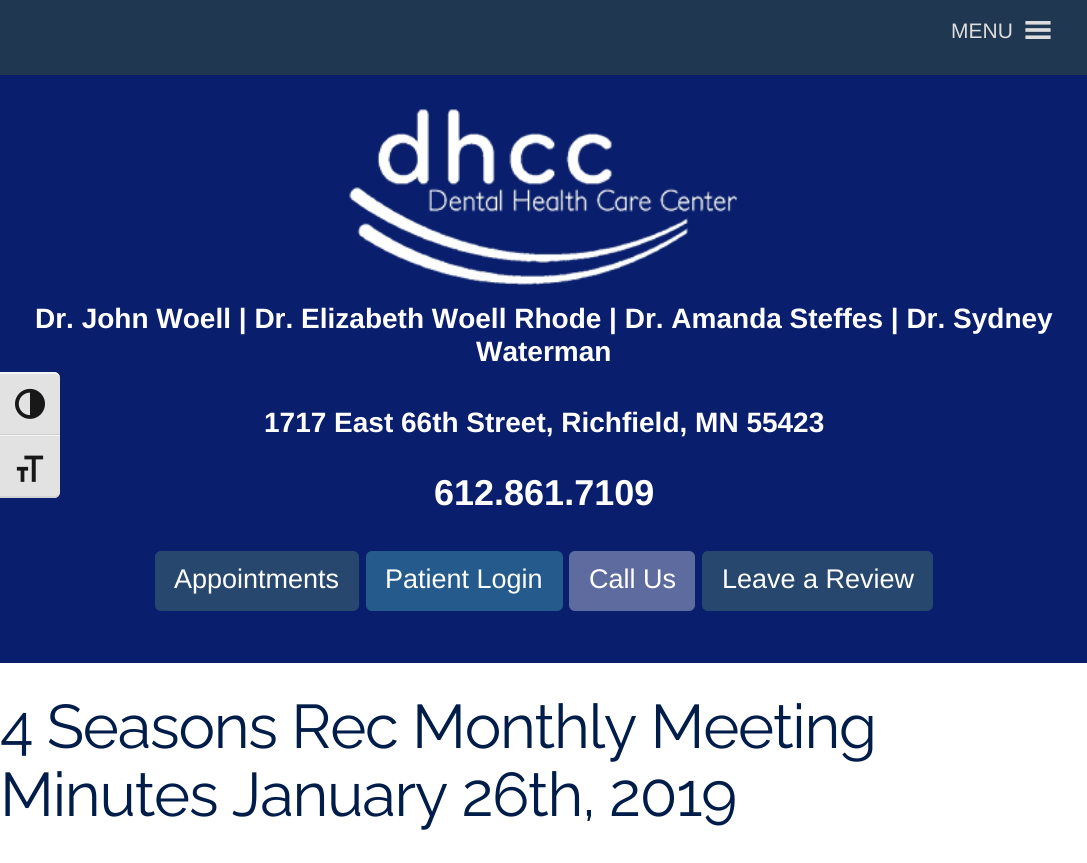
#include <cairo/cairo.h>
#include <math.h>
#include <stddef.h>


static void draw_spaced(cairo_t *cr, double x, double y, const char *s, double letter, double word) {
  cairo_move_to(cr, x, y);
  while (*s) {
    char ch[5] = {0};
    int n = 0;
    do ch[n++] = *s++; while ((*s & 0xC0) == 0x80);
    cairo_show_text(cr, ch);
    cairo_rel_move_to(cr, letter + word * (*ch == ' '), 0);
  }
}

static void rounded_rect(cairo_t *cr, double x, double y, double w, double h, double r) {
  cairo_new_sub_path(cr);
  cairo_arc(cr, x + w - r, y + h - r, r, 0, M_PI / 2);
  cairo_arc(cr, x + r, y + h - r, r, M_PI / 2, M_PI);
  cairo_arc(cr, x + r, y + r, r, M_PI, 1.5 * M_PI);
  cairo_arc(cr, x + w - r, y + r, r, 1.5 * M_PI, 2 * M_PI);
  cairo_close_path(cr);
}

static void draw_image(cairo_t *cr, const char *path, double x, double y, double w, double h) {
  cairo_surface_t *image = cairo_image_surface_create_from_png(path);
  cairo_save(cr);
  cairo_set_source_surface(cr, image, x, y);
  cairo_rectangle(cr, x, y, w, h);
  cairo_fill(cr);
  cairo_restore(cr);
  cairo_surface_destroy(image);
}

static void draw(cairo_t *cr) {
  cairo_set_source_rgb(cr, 1, 1, 1);
  cairo_paint(cr);
  cairo_set_source_rgb(cr, 32 / 255.0, 55 / 255.0, 82 / 255.0);
  cairo_rectangle(cr, 0, 0, 1087, 75);
  cairo_fill(cr);
  draw_image(cr, "images/1.png", 1025, 21, 26, 18);
  cairo_set_source_rgb(cr, 10 / 255.0, 30 / 255.0, 110 / 255.0);
  cairo_rectangle(cr, 0, 75, 1087, 588);
  cairo_fill(cr);
  cairo_set_source_rgb(cr, 226 / 255.0, 226 / 255.0, 226 / 255.0);
  cairo_new_path(cr);
  cairo_move_to(cr, 0, 372);
  cairo_line_to(cr, 54, 372);
  cairo_curve_to(cr, 57.5, 372, 60, 374.5, 60, 378);
  cairo_line_to(cr, 60, 435);
  cairo_line_to(cr, 0, 435);
  cairo_close_path(cr);
  cairo_fill(cr);
  cairo_set_source_rgb(cr, 245 / 255.0, 245 / 255.0, 245 / 255.0);
  cairo_new_path(cr);
  cairo_move_to(cr, 0, 372);
  cairo_line_to(cr, 0, 374);
  cairo_line_to(cr, 54, 374);
  cairo_curve_to(cr, 57, 374, 60, 376, 60, 378);
  cairo_curve_to(cr, 60, 375, 57, 372, 54, 372);
  cairo_close_path(cr);
  cairo_fill(cr);
  cairo_set_source_rgb(cr, 210 / 255.0, 210 / 255.0, 210 / 255.0);
  cairo_rectangle(cr, 0, 434, 60, 1);
  cairo_fill(cr);
  draw_image(cr, "images/2.png", 15, 388, 30, 31);
  cairo_set_source_rgb(cr, 226 / 255.0, 226 / 255.0, 226 / 255.0);
  cairo_new_path(cr);
  cairo_move_to(cr, 0, 435);
  cairo_line_to(cr, 60, 435);
  cairo_line_to(cr, 60, 492);
  cairo_curve_to(cr, 60, 495.5, 57.5, 498, 54, 498);
  cairo_line_to(cr, 0, 498);
  cairo_close_path(cr);
  cairo_fill(cr);
  cairo_set_source_rgb(cr, 245 / 255.0, 245 / 255.0, 245 / 255.0);
  cairo_rectangle(cr, 0, 435, 60, 1);
  cairo_fill(cr);
  cairo_set_source_rgb(cr, 210 / 255.0, 210 / 255.0, 210 / 255.0);
  cairo_new_path(cr);
  cairo_move_to(cr, 0, 496);
  cairo_line_to(cr, 0, 498);
  cairo_line_to(cr, 54, 498);
  cairo_curve_to(cr, 57, 498, 60, 495, 60, 492);
  cairo_curve_to(cr, 60, 494, 57, 496, 54, 496);
  cairo_close_path(cr);
  cairo_fill(cr);
  draw_image(cr, "images/3.png", 16, 455, 28, 27);
  draw_image(cr, "images/4.png", 349, 109, 389, 176);
  cairo_set_source_rgb(cr, 39 / 255.0, 71 / 255.0, 110 / 255.0);
  rounded_rect(cr, 156, 552, 202, 58, 5);
  cairo_fill_preserve(cr);
  cairo_stroke(cr);
  cairo_set_source_rgb(cr, 37 / 255.0, 90 / 255.0, 140 / 255.0);
  rounded_rect(cr, 367, 552, 195, 58, 5);
  cairo_fill_preserve(cr);
  cairo_stroke(cr);
  cairo_set_source_rgb(cr, 94 / 255.0, 107 / 255.0, 159 / 255.0);
  rounded_rect(cr, 570, 552, 124, 58, 5);
  cairo_fill_preserve(cr);
  cairo_stroke(cr);
  cairo_set_source_rgb(cr, 39 / 255.0, 71 / 255.0, 110 / 255.0);
  rounded_rect(cr, 703, 552, 229, 58, 5);
  cairo_fill_preserve(cr);
  cairo_stroke(cr);
  cairo_select_font_face(cr, "Arimo", CAIRO_FONT_SLANT_NORMAL, CAIRO_FONT_WEIGHT_NORMAL);
  cairo_set_font_size(cr, 21);
  cairo_set_source_rgb(cr, 221 / 255.0, 221 / 255.0, 221 / 255.0);
  cairo_move_to(cr, 951, 38);
  cairo_show_text(cr, "MENU");
  cairo_select_font_face(cr, "Liberation Sans", CAIRO_FONT_SLANT_NORMAL, CAIRO_FONT_WEIGHT_BOLD);
  cairo_set_font_size(cr, 28);
  cairo_set_source_rgb(cr, 1, 1, 1);
  cairo_move_to(cr, 35, 328);
  cairo_show_text(cr, "Dr. John Woell | Dr. Elizabeth Woell Rhode | Dr. Amanda Steffes | Dr. Sydney");
  cairo_move_to(cr, 476, 361);
  cairo_show_text(cr, "Waterman");
  cairo_move_to(cr, 264, 432);
  cairo_show_text(cr, "1717 East 66th Street, Richfield, MN 55423");
  cairo_set_font_size(cr, 36);
  cairo_move_to(cr, 434, 505);
  cairo_show_text(cr, "612.861.7109");
  cairo_select_font_face(cr, "Liberation Sans", CAIRO_FONT_SLANT_NORMAL, CAIRO_FONT_WEIGHT_NORMAL);
  cairo_set_font_size(cr, 27);
  cairo_move_to(cr, 174, 588);
  cairo_show_text(cr, "Appointments");
  cairo_move_to(cr, 385, 588);
  cairo_show_text(cr, "Patient Login");
  cairo_move_to(cr, 589, 588);
  cairo_show_text(cr, "Call Us");
  cairo_move_to(cr, 722, 588);
  cairo_show_text(cr, "Leave a Review");
  cairo_select_font_face(cr, "Raleway Thin", CAIRO_FONT_SLANT_NORMAL, CAIRO_FONT_WEIGHT_NORMAL);
  cairo_set_font_size(cr, 61.5);
  cairo_set_source_rgb(cr, 0, 29 / 255.0, 74 / 255.0);
  draw_spaced(cr, 0, 748, "4 Seasons Rec Monthly Meeting", -1.25, 0);
  draw_spaced(cr, 0, 816, "Minutes January 26th, 2019", -1.25, 0);
}

int main(void) {
  cairo_surface_t *surface = cairo_image_surface_create(CAIRO_FORMAT_RGB24, 1087, 863);
  cairo_t *cr = cairo_create(surface);
  cairo_font_options_t *options = cairo_font_options_create();
  cairo_font_options_set_hint_metrics(options, CAIRO_HINT_METRICS_OFF);
  cairo_font_options_set_hint_style(options, CAIRO_HINT_STYLE_NONE);
  cairo_set_font_options(cr, options);
  cairo_set_miter_limit(cr, 4);
  draw(cr);
  cairo_surface_write_to_png(surface, "out.png");
  cairo_font_options_destroy(options);
  cairo_destroy(cr);
  cairo_surface_destroy(surface);
  return 0;
}
